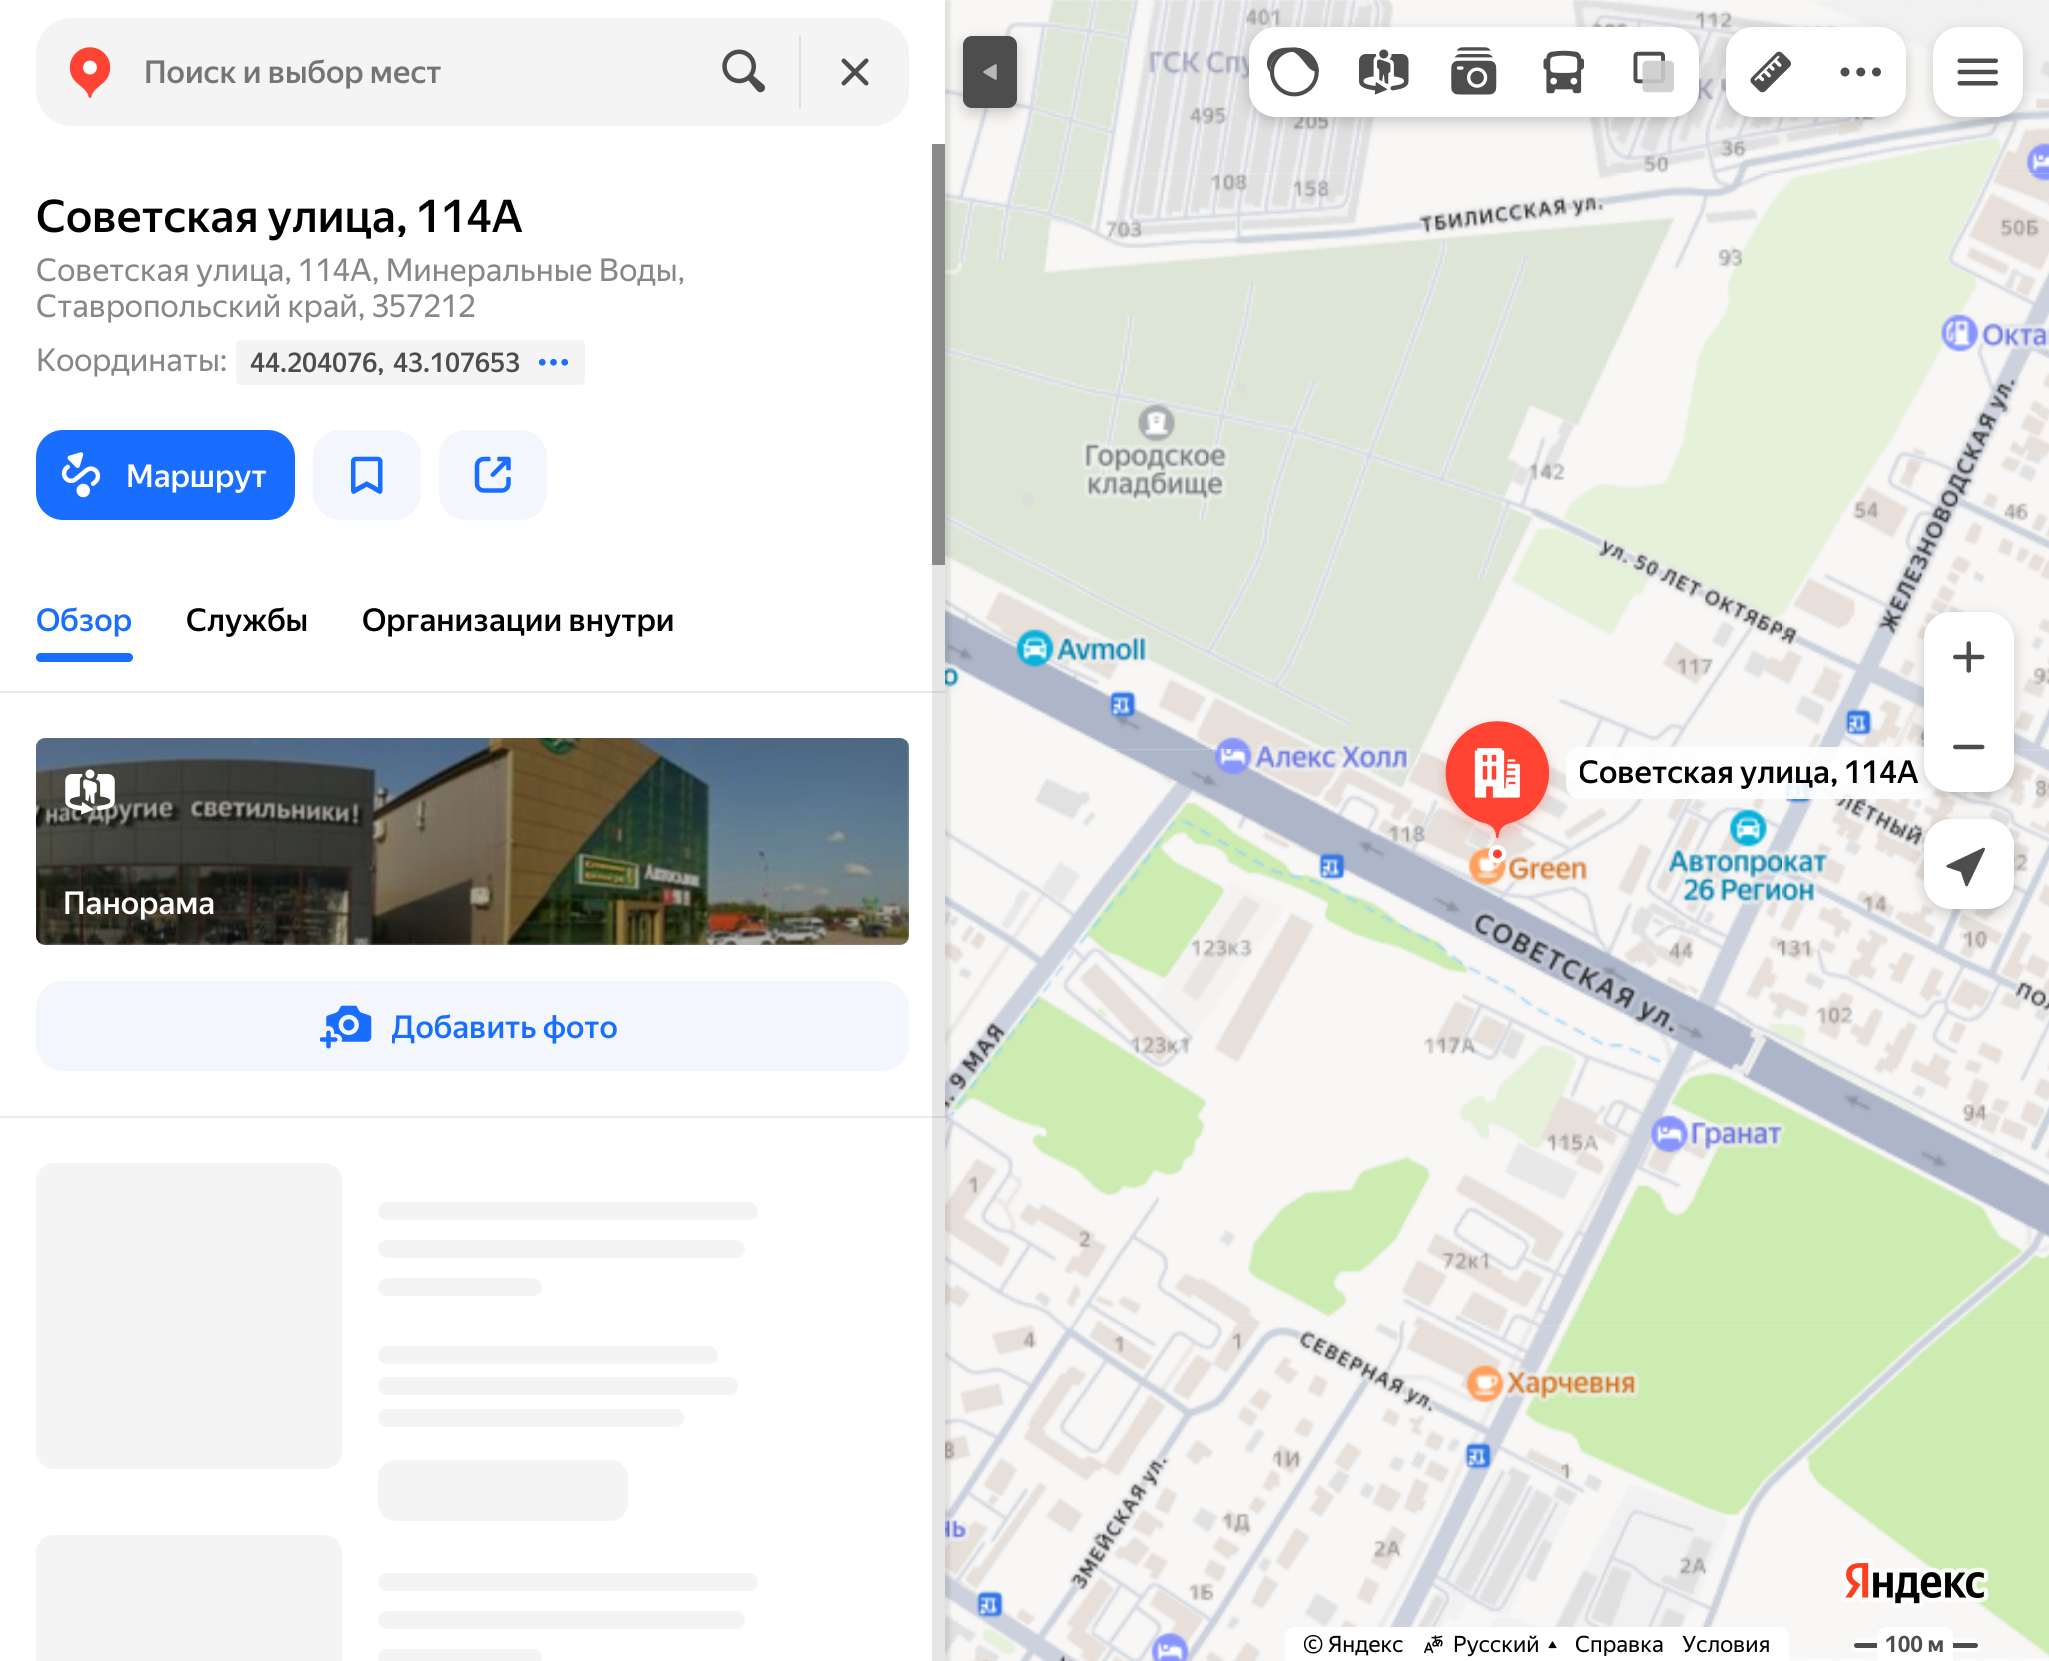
#include <cairo/cairo.h>
#include <math.h>
#include <stddef.h>


static void draw_spaced(cairo_t *cr, double x, double y, const char *s, double letter, double word) {
  cairo_move_to(cr, x, y);
  while (*s) {
    char ch[5] = {0};
    int n = 0;
    do ch[n++] = *s++; while ((*s & 0xC0) == 0x80);
    cairo_show_text(cr, ch);
    cairo_rel_move_to(cr, letter + word * (*ch == ' '), 0);
  }
}

static void rounded_rect(cairo_t *cr, double x, double y, double w, double h, double r) {
  cairo_new_sub_path(cr);
  cairo_arc(cr, x + w - r, y + h - r, r, 0, M_PI / 2);
  cairo_arc(cr, x + r, y + h - r, r, M_PI / 2, M_PI);
  cairo_arc(cr, x + r, y + r, r, M_PI, 1.5 * M_PI);
  cairo_arc(cr, x + w - r, y + r, r, 1.5 * M_PI, 2 * M_PI);
  cairo_close_path(cr);
}

static void draw_shadow(cairo_t *cr, double x, double y, double w, double h, double r, double blur, double alpha) {
  cairo_push_group_with_content(cr, CAIRO_CONTENT_ALPHA);
  cairo_set_operator(cr, CAIRO_OPERATOR_SOURCE);
  for (int i = 15; i >= -15 && fmin(w, h) + blur * i / 3 > 0; i -= 2) {
    double e = blur * i / 6;
    cairo_set_source_rgba(cr, 0, 0, 0, alpha * erfc((i - 1) / 8.5) / 2);
    rounded_rect(cr, x - e, y - e, w + 2 * e, h + 2 * e, fmax(0, fmin(r + e + blur * .6, fmin(w, h) / 2 + e)));
    cairo_fill(cr);
  }
  cairo_pattern_t *soft = cairo_pop_group(cr);
  cairo_mask(cr, soft);
  cairo_pattern_destroy(soft);
}

static void draw_image(cairo_t *cr, const char *path, double x, double y, double w, double h) {
  cairo_surface_t *image = cairo_image_surface_create_from_png(path);
  cairo_save(cr);
  cairo_set_source_surface(cr, image, x, y);
  cairo_rectangle(cr, x, y, w, h);
  cairo_fill(cr);
  cairo_restore(cr);
  cairo_surface_destroy(image);
}

static void draw(cairo_t *cr) {
  cairo_pattern_t *gradient;
  cairo_set_source_rgb(cr, 1, 1, 1);
  cairo_paint(cr);
  draw_image(cr, "images/1.png", 945, 0, 1104, 1661);
  draw_image(cr, "images/27.png", 945, 0, 261, 173);
  draw_image(cr, "images/30.png", 945, 173, 261, 577);
  draw_image(cr, "images/33.png", 945, 749, 261, 577);
  draw_image(cr, "images/36.png", 945, 1325, 261, 336);
  cairo_set_source_rgb(cr, 0, 0, 0);
  draw_shadow(cr, 5, 0, 945, 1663, 0, 2, 0.1);
  draw_shadow(cr, 963, 41, 54, 72, 9, 7, 0.2);
  cairo_set_source_rgb(cr, 1, 1, 1);
  cairo_rectangle(cr, 2, 0, 943, 1661);
  cairo_fill(cr);
  cairo_set_source_rgb(cr, 244 / 255.0, 244 / 255.0, 244 / 255.0);
  rounded_rect(cr, 36, 18, 873, 108, 36);
  cairo_fill(cr);
  draw_image(cr, "images/2.png", 69, 47, 42, 51);
  draw_image(cr, "images/3.png", 722, 49, 43, 44);
  cairo_set_source_rgb(cr, 224 / 255.0, 224 / 255.0, 224 / 255.0);
  cairo_rectangle(cr, 799, 36, 2, 72);
  cairo_fill(cr);
  draw_image(cr, "images/4.png", 841, 58, 28, 28);
  draw_image(cr, "images/28.png", 1206, 0, 576, 173);
  cairo_set_source_rgb(cr, 0, 0, 0);
  draw_shadow(cr, 1249, 32, 450, 90, 27, 7, 0.2);
  cairo_set_source_rgb(cr, 1, 1, 1);
  cairo_new_path(cr);
  cairo_move_to(cr, 1276, 27);
  cairo_line_to(cr, 1339, 27);
  cairo_line_to(cr, 1339, 117);
  cairo_line_to(cr, 1276, 117);
  cairo_curve_to(cr, 1261, 117, 1249, 105, 1249, 90);
  cairo_line_to(cr, 1249, 54);
  cairo_curve_to(cr, 1249, 39, 1261, 27, 1276, 27);
  cairo_close_path(cr);
  cairo_fill(cr);
  draw_image(cr, "images/5.png", 1266, 47, 53, 50);
  cairo_rectangle(cr, 1339, 27, 270, 90);
  cairo_fill(cr);
  draw_image(cr, "images/6.png", 1359, 49, 50, 46);
  cairo_new_path(cr);
  cairo_move_to(cr, 1609, 27);
  cairo_line_to(cr, 1672, 27);
  cairo_curve_to(cr, 1687, 27, 1699, 39, 1699, 54);
  cairo_line_to(cr, 1699, 90);
  cairo_curve_to(cr, 1699, 105, 1687, 117, 1672, 117);
  cairo_line_to(cr, 1609, 117);
  cairo_close_path(cr);
  cairo_fill(cr);
  draw_image(cr, "images/7.png", 1633, 51, 41, 42);
  draw_image(cr, "images/8.png", 1451, 47, 46, 48);
  draw_image(cr, "images/9.png", 1543, 50, 41, 44);
  draw_image(cr, "images/29.png", 1782, 0, 267, 174);
  cairo_set_source_rgb(cr, 0, 0, 0);
  draw_shadow(cr, 1726, 32, 180, 90, 27, 7, 0.2);
  cairo_set_source_rgb(cr, 1, 1, 1);
  cairo_new_path(cr);
  cairo_move_to(cr, 1753, 27);
  cairo_line_to(cr, 1816, 27);
  cairo_line_to(cr, 1816, 117);
  cairo_line_to(cr, 1753, 117);
  cairo_curve_to(cr, 1738, 117, 1726, 105, 1726, 90);
  cairo_line_to(cr, 1726, 54);
  cairo_curve_to(cr, 1726, 39, 1738, 27, 1753, 27);
  cairo_close_path(cr);
  cairo_fill(cr);
  draw_image(cr, "images/10.png", 1750, 51, 41, 42);
  cairo_new_path(cr);
  cairo_move_to(cr, 1816, 27);
  cairo_line_to(cr, 1879, 27);
  cairo_curve_to(cr, 1894, 27, 1906, 39, 1906, 54);
  cairo_line_to(cr, 1906, 90);
  cairo_curve_to(cr, 1906, 105, 1894, 117, 1879, 117);
  cairo_line_to(cr, 1816, 117);
  cairo_close_path(cr);
  cairo_fill(cr);
  draw_image(cr, "images/11.png", 1840, 67, 41, 10);
  cairo_set_source_rgb(cr, 0, 0, 0);
  draw_shadow(cr, 1933, 32, 90, 90, 27, 7, 0.2);
  cairo_set_source_rgb(cr, 1, 1, 1);
  rounded_rect(cr, 1933, 27, 90, 90, 27);
  cairo_fill(cr);
  draw_image(cr, "images/12.png", 1957, 58, 41, 28);
  draw_image(cr, "images/32.png", 1782, 173, 267, 577);
  draw_image(cr, "images/35.png", 1782, 749, 267, 577);
  draw_image(cr, "images/31.png", 1206, 173, 576, 577);
  draw_image(cr, "images/34.png", 1206, 749, 576, 577);
  cairo_set_source_rgba(cr, 1, 1, 1, 0.9);
  rounded_rect(cr, 1566, 747, 369, 52, 14);
  cairo_fill(cr);
  cairo_set_source_rgb(cr, 0, 0, 0);
  draw_shadow(cr, 1924, 617, 90, 180, 27, 7, 0.2);
  cairo_set_source_rgb(cr, 1, 1, 1);
  cairo_new_path(cr);
  cairo_move_to(cr, 1951, 612);
  cairo_line_to(cr, 1987, 612);
  cairo_curve_to(cr, 2002, 612, 2014, 624, 2014, 639);
  cairo_line_to(cr, 2014, 702);
  cairo_line_to(cr, 1924, 702);
  cairo_line_to(cr, 1924, 639);
  cairo_curve_to(cr, 1924, 624, 1936, 612, 1951, 612);
  cairo_close_path(cr);
  cairo_fill(cr);
  draw_image(cr, "images/13.png", 1953, 641, 32, 32);
  cairo_new_path(cr);
  cairo_move_to(cr, 1924, 702);
  cairo_line_to(cr, 2014, 702);
  cairo_line_to(cr, 2014, 765);
  cairo_curve_to(cr, 2014, 780, 2002, 792, 1987, 792);
  cairo_line_to(cr, 1951, 792);
  cairo_curve_to(cr, 1936, 792, 1924, 780, 1924, 765);
  cairo_close_path(cr);
  cairo_fill(cr);
  draw_image(cr, "images/14.png", 1953, 744, 32, 6);
  cairo_set_source_rgb(cr, 0, 0, 0);
  draw_shadow(cr, 1924, 824, 90, 90, 27, 7, 0.2);
  cairo_set_source_rgb(cr, 1, 1, 1);
  rounded_rect(cr, 1924, 819, 90, 90, 27);
  cairo_fill(cr);
  draw_image(cr, "images/15.png", 1946, 847, 39, 40);
  cairo_set_source_rgb(cr, 77 / 255.0, 77 / 255.0, 77 / 255.0);
  rounded_rect(cr, 963, 36, 54, 72, 9);
  cairo_fill(cr);
  draw_image(cr, "images/16.png", 983, 64, 14, 16);
  cairo_set_source_rgb(cr, 244 / 255.0, 244 / 255.0, 244 / 255.0);
  rounded_rect(cr, 236, 340, 349, 45, 5);
  cairo_fill(cr);
  draw_image(cr, "images/17.png", 538, 358, 31, 8);
  cairo_set_source_rgb(cr, 25 / 255.0, 109 / 255.0, 1);
  rounded_rect(cr, 36, 430, 259, 90, 27);
  cairo_fill(cr);
  draw_image(cr, "images/18.png", 61, 452, 40, 46);
  cairo_set_source_rgb(cr, 243 / 255.0, 246 / 255.0, 252 / 255.0);
  rounded_rect(cr, 313, 430, 108, 90, 27);
  cairo_fill(cr);
  draw_image(cr, "images/19.png", 351, 456, 32, 38);
  rounded_rect(cr, 439, 430, 108, 90, 27);
  cairo_fill(cr);
  draw_image(cr, "images/20.png", 474, 456, 37, 37);
  cairo_set_source_rgb(cr, 25 / 255.0, 109 / 255.0, 1);
  rounded_rect(cr, 36, 653, 97, 9, 4.5);
  cairo_fill(cr);
  cairo_set_source_rgb(cr, 235 / 255.0, 235 / 255.0, 235 / 255.0);
  cairo_rectangle(cr, 0, 691, 945, 2);
  cairo_fill(cr);
  cairo_rectangle(cr, 0, 1116, 945, 2);
  cairo_fill(cr);
  draw_image(cr, "images/21.png", 36, 738, 873, 207);
  cairo_set_source_rgba(cr, 0, 0, 0, 0.3);
  rounded_rect(cr, 36, 738, 873, 207, 9);
  cairo_fill(cr);
  draw_image(cr, "images/22.png", 65, 769, 50, 46);
  cairo_set_source_rgb(cr, 243 / 255.0, 246 / 255.0, 252 / 255.0);
  rounded_rect(cr, 36, 981, 873, 90, 27);
  cairo_fill(cr);
  draw_image(cr, "images/23.png", 320, 1005, 52, 44);
  gradient = cairo_pattern_create_linear(-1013, 115, 1391, 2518);
  cairo_pattern_add_color_stop_rgba(gradient, 0.6, 244 / 255.0, 244 / 255.0, 244 / 255.0, 1);
  cairo_pattern_add_color_stop_rgba(gradient, 0.78, 235 / 255.0, 235 / 255.0, 235 / 255.0, 1);
  cairo_pattern_add_color_stop_rgba(gradient, 0.86, 244 / 255.0, 244 / 255.0, 244 / 255.0, 1);
  cairo_set_source(cr, gradient);
  cairo_pattern_destroy(gradient);
  rounded_rect(cr, 36, 1163, 306, 306, 18);
  cairo_fill(cr);
  gradient = cairo_pattern_create_linear(-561, 81, 1698, 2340);
  cairo_pattern_add_color_stop_rgba(gradient, 0.6, 244 / 255.0, 244 / 255.0, 244 / 255.0, 1);
  cairo_pattern_add_color_stop_rgba(gradient, 0.78, 235 / 255.0, 235 / 255.0, 235 / 255.0, 1);
  cairo_pattern_add_color_stop_rgba(gradient, 0.86, 244 / 255.0, 244 / 255.0, 244 / 255.0, 1);
  cairo_set_source(cr, gradient);
  cairo_pattern_destroy(gradient);
  rounded_rect(cr, 378, 1202, 380, 18, 9);
  cairo_fill(cr);
  gradient = cairo_pattern_create_linear(-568, 119, 1691, 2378);
  cairo_pattern_add_color_stop_rgba(gradient, 0.6, 244 / 255.0, 244 / 255.0, 244 / 255.0, 1);
  cairo_pattern_add_color_stop_rgba(gradient, 0.78, 235 / 255.0, 235 / 255.0, 235 / 255.0, 1);
  cairo_pattern_add_color_stop_rgba(gradient, 0.86, 244 / 255.0, 244 / 255.0, 244 / 255.0, 1);
  cairo_set_source(cr, gradient);
  cairo_pattern_destroy(gradient);
  rounded_rect(cr, 378, 1240, 367, 18, 9);
  cairo_fill(cr);
  gradient = cairo_pattern_create_linear(-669, 158, 1590, 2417);
  cairo_pattern_add_color_stop_rgba(gradient, 0.6, 244 / 255.0, 244 / 255.0, 244 / 255.0, 1);
  cairo_pattern_add_color_stop_rgba(gradient, 0.78, 235 / 255.0, 235 / 255.0, 235 / 255.0, 1);
  cairo_pattern_add_color_stop_rgba(gradient, 0.86, 244 / 255.0, 244 / 255.0, 244 / 255.0, 1);
  cairo_set_source(cr, gradient);
  cairo_pattern_destroy(gradient);
  rounded_rect(cr, 378, 1278, 164, 18, 9);
  cairo_fill(cr);
  gradient = cairo_pattern_create_linear(-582, 225, 1677, 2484);
  cairo_pattern_add_color_stop_rgba(gradient, 0.6, 244 / 255.0, 244 / 255.0, 244 / 255.0, 1);
  cairo_pattern_add_color_stop_rgba(gradient, 0.78, 235 / 255.0, 235 / 255.0, 235 / 255.0, 1);
  cairo_pattern_add_color_stop_rgba(gradient, 0.86, 244 / 255.0, 244 / 255.0, 244 / 255.0, 1);
  cairo_set_source(cr, gradient);
  cairo_pattern_destroy(gradient);
  rounded_rect(cr, 378, 1346, 340, 18, 9);
  cairo_fill(cr);
  gradient = cairo_pattern_create_linear(-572, 257, 1688, 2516);
  cairo_pattern_add_color_stop_rgba(gradient, 0.6, 244 / 255.0, 244 / 255.0, 244 / 255.0, 1);
  cairo_pattern_add_color_stop_rgba(gradient, 0.78, 235 / 255.0, 235 / 255.0, 235 / 255.0, 1);
  cairo_pattern_add_color_stop_rgba(gradient, 0.86, 244 / 255.0, 244 / 255.0, 244 / 255.0, 1);
  cairo_set_source(cr, gradient);
  cairo_pattern_destroy(gradient);
  rounded_rect(cr, 378, 1377, 360, 18, 9);
  cairo_fill(cr);
  gradient = cairo_pattern_create_linear(-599, 288, 1661, 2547);
  cairo_pattern_add_color_stop_rgba(gradient, 0.6, 244 / 255.0, 244 / 255.0, 244 / 255.0, 1);
  cairo_pattern_add_color_stop_rgba(gradient, 0.78, 235 / 255.0, 235 / 255.0, 235 / 255.0, 1);
  cairo_pattern_add_color_stop_rgba(gradient, 0.86, 244 / 255.0, 244 / 255.0, 244 / 255.0, 1);
  cairo_set_source(cr, gradient);
  cairo_pattern_destroy(gradient);
  rounded_rect(cr, 378, 1409, 306, 18, 9);
  cairo_fill(cr);
  gradient = cairo_pattern_create_linear(-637, 350, 1643, 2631);
  cairo_pattern_add_color_stop_rgba(gradient, 0.6, 244 / 255.0, 244 / 255.0, 244 / 255.0, 1);
  cairo_pattern_add_color_stop_rgba(gradient, 0.78, 235 / 255.0, 235 / 255.0, 235 / 255.0, 1);
  cairo_pattern_add_color_stop_rgba(gradient, 0.86, 244 / 255.0, 244 / 255.0, 244 / 255.0, 1);
  cairo_set_source(cr, gradient);
  cairo_pattern_destroy(gradient);
  rounded_rect(cr, 378, 1460, 250, 61, 18);
  cairo_fill(cr);
  gradient = cairo_pattern_create_linear(-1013, 486, 1391, 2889);
  cairo_pattern_add_color_stop_rgba(gradient, 0.6, 244 / 255.0, 244 / 255.0, 244 / 255.0, 1);
  cairo_pattern_add_color_stop_rgba(gradient, 0.78, 235 / 255.0, 235 / 255.0, 235 / 255.0, 1);
  cairo_pattern_add_color_stop_rgba(gradient, 0.86, 244 / 255.0, 244 / 255.0, 244 / 255.0, 1);
  cairo_set_source(cr, gradient);
  cairo_pattern_destroy(gradient);
  cairo_new_path(cr);
  cairo_move_to(cr, 54, 1535);
  cairo_line_to(cr, 324, 1535);
  cairo_curve_to(cr, 334, 1535, 342, 1543, 342, 1553);
  cairo_line_to(cr, 342, 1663);
  cairo_line_to(cr, 36, 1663);
  cairo_line_to(cr, 36, 1553);
  cairo_curve_to(cr, 36, 1543, 44, 1535, 54, 1535);
  cairo_close_path(cr);
  cairo_fill(cr);
  gradient = cairo_pattern_create_linear(-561, 452, 1698, 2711);
  cairo_pattern_add_color_stop_rgba(gradient, 0.6, 244 / 255.0, 244 / 255.0, 244 / 255.0, 1);
  cairo_pattern_add_color_stop_rgba(gradient, 0.78, 235 / 255.0, 235 / 255.0, 235 / 255.0, 1);
  cairo_pattern_add_color_stop_rgba(gradient, 0.86, 244 / 255.0, 244 / 255.0, 244 / 255.0, 1);
  cairo_set_source(cr, gradient);
  cairo_pattern_destroy(gradient);
  rounded_rect(cr, 378, 1573, 380, 18, 9);
  cairo_fill(cr);
  gradient = cairo_pattern_create_linear(-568, 491, 1691, 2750);
  cairo_pattern_add_color_stop_rgba(gradient, 0.6, 244 / 255.0, 244 / 255.0, 244 / 255.0, 1);
  cairo_pattern_add_color_stop_rgba(gradient, 0.78, 235 / 255.0, 235 / 255.0, 235 / 255.0, 1);
  cairo_pattern_add_color_stop_rgba(gradient, 0.86, 244 / 255.0, 244 / 255.0, 244 / 255.0, 1);
  cairo_set_source(cr, gradient);
  cairo_pattern_destroy(gradient);
  rounded_rect(cr, 378, 1611, 367, 18, 9);
  cairo_fill(cr);
  gradient = cairo_pattern_create_linear(-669, 529, 1590, 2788);
  cairo_pattern_add_color_stop_rgba(gradient, 0.6, 244 / 255.0, 244 / 255.0, 244 / 255.0, 1);
  cairo_pattern_add_color_stop_rgba(gradient, 0.78, 235 / 255.0, 235 / 255.0, 235 / 255.0, 1);
  cairo_pattern_add_color_stop_rgba(gradient, 0.86, 244 / 255.0, 244 / 255.0, 244 / 255.0, 1);
  cairo_set_source(cr, gradient);
  cairo_pattern_destroy(gradient);
  rounded_rect(cr, 378, 1649, 164, 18, 9);
  cairo_fill(cr);
  cairo_set_source_rgb(cr, 138 / 255.0, 138 / 255.0, 138 / 255.0);
  cairo_rectangle(cr, 932, 144, 13, 421);
  cairo_fill(cr);
  cairo_set_source_rgba(cr, 0, 0, 0, 0.1);
  cairo_rectangle(cr, 932, 565, 13, 1096);
  cairo_fill(cr);
  draw_image(cr, "images/38.png", 1782, 1325, 267, 333);
  draw_image(cr, "images/24.png", 1841, 1559, 148, 49);
  draw_image(cr, "images/37.png", 1206, 1325, 576, 336);
  cairo_set_source_rgb(cr, 1, 1, 1);
  cairo_new_path(cr);
  cairo_move_to(cr, 1294, 1627);
  cairo_line_to(cr, 1780, 1627);
  cairo_curve_to(cr, 1785, 1627, 1789, 1631, 1789, 1636);
  cairo_line_to(cr, 1789, 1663);
  cairo_line_to(cr, 1285, 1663);
  cairo_line_to(cr, 1285, 1636);
  cairo_curve_to(cr, 1285, 1631, 1289, 1627, 1294, 1627);
  cairo_close_path(cr);
  cairo_fill(cr);
  draw_image(cr, "images/25.png", 1423, 1635, 20, 19);
  draw_image(cr, "images/26.png", 1548, 1641, 9, 8);
  cairo_set_source_rgb(cr, 252 / 255.0, 252 / 255.0, 251 / 255.0);
  rounded_rect(cr, 1850, 1638, 132, 14, 7);
  cairo_fill(cr);
  cairo_set_source_rgb(cr, 77 / 255.0, 77 / 255.0, 77 / 255.0);
  rounded_rect(cr, 1854, 1643, 124, 5, 2.5);
  cairo_fill(cr);
  cairo_set_source_rgb(cr, 1, 1, 1);
  cairo_new_path(cr);
  cairo_move_to(cr, 1886, 1627);
  cairo_line_to(cr, 1944, 1627);
  cairo_curve_to(cr, 1949, 1627, 1953, 1631, 1953, 1636);
  cairo_line_to(cr, 1953, 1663);
  cairo_line_to(cr, 1877, 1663);
  cairo_line_to(cr, 1877, 1636);
  cairo_curve_to(cr, 1877, 1631, 1881, 1627, 1886, 1627);
  cairo_close_path(cr);
  cairo_fill(cr);
  draw_image(cr, "images/39.png", 1437, 717, 121, 146);
  draw_image(cr, "images/40.png", 1474, 748, 46, 50);
  cairo_select_font_face(cr, "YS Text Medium", CAIRO_FONT_SLANT_NORMAL, CAIRO_FONT_WEIGHT_NORMAL);
  cairo_set_font_size(cr, 31.5);
  cairo_set_source_rgb(cr, 117 / 255.0, 117 / 255.0, 117 / 255.0);
  cairo_move_to(cr, 144, 83);
  cairo_show_text(cr, "Поиск и выбор мест");
  cairo_set_font_size(cr, 45);
  cairo_set_source_rgb(cr, 0, 0, 0);
  cairo_move_to(cr, 36, 232);
  cairo_show_text(cr, "Советская улица, 114А");
  cairo_select_font_face(cr, "YS Text", CAIRO_FONT_SLANT_NORMAL, CAIRO_FONT_WEIGHT_NORMAL);
  cairo_set_font_size(cr, 31.5);
  cairo_set_source_rgb(cr, 135 / 255.0, 135 / 255.0, 135 / 255.0);
  cairo_move_to(cr, 36, 281);
  cairo_show_text(cr, "Советская улица, 114А, Минеральные Воды,");
  cairo_move_to(cr, 36, 317);
  cairo_show_text(cr, "Ставропольский край, 357212");
  cairo_move_to(cr, 36, 371);
  cairo_show_text(cr, "Координаты:");
  cairo_select_font_face(cr, "YS Text Medium", CAIRO_FONT_SLANT_NORMAL, CAIRO_FONT_WEIGHT_NORMAL);
  cairo_set_font_size(cr, 27);
  cairo_set_source_rgb(cr, 77 / 255.0, 77 / 255.0, 77 / 255.0);
  draw_spaced(cr, 250, 372, "44.204076,", 0, -2);
  draw_spaced(cr, 393, 372, "43.107653", 0, -2);
  cairo_set_font_size(cr, 31.5);
  cairo_set_source_rgb(cr, 1, 1, 1);
  cairo_move_to(cr, 126, 487);
  cairo_show_text(cr, "Маршрут");
  cairo_set_source_rgb(cr, 25 / 255.0, 109 / 255.0, 1);
  cairo_move_to(cr, 36, 631);
  cairo_show_text(cr, "Обзор");
  cairo_set_source_rgb(cr, 0, 0, 0);
  cairo_move_to(cr, 186, 631);
  cairo_show_text(cr, "Службы");
  cairo_move_to(cr, 362, 631);
  cairo_show_text(cr, "Организации внутри");
  cairo_set_source_rgb(cr, 1, 1, 1);
  cairo_move_to(cr, 63, 914);
  cairo_show_text(cr, "Панорама");
  cairo_save(cr);
  cairo_rectangle(cr, 392, 981, 252, 90);
  cairo_clip(cr);
  cairo_set_source_rgb(cr, 25 / 255.0, 109 / 255.0, 1);
  cairo_move_to(cr, 391, 1038);
  cairo_show_text(cr, "Добавить фото");
  cairo_restore(cr);
  cairo_select_font_face(cr, "YS Text", CAIRO_FONT_SLANT_NORMAL, CAIRO_FONT_WEIGHT_NORMAL);
  cairo_set_font_size(cr, 22.5);
  cairo_set_source_rgb(cr, 0, 0, 0);
  cairo_move_to(cr, 1303, 1652);
  cairo_show_text(cr, "© Яндекс");
  cairo_move_to(cr, 1453, 1652);
  cairo_show_text(cr, "Русский");
  cairo_move_to(cr, 1575, 1652);
  cairo_show_text(cr, "Справка");
  cairo_move_to(cr, 1682, 1652);
  cairo_show_text(cr, "Условия");
  cairo_select_font_face(cr, "YS Text", CAIRO_FONT_SLANT_NORMAL, CAIRO_FONT_WEIGHT_BOLD);
  cairo_set_source_rgb(cr, 77 / 255.0, 77 / 255.0, 77 / 255.0);
  cairo_move_to(cr, 1885, 1652);
  cairo_show_text(cr, "100 м");
  cairo_save(cr);
  cairo_rectangle(cr, 1580, 754, 342, 36);
  cairo_clip(cr);
  cairo_select_font_face(cr, "YS Text Medium", CAIRO_FONT_SLANT_NORMAL, CAIRO_FONT_WEIGHT_NORMAL);
  cairo_set_font_size(cr, 31.5);
  cairo_set_source_rgb(cr, 0, 0, 0);
  cairo_move_to(cr, 1578, 783);
  cairo_show_text(cr, "Советская улица, 114А");
  cairo_restore(cr);
}

int main(void) {
  cairo_surface_t *surface = cairo_image_surface_create(CAIRO_FORMAT_RGB24, 2049, 1661);
  cairo_t *cr = cairo_create(surface);
  cairo_font_options_t *options = cairo_font_options_create();
  cairo_font_options_set_hint_metrics(options, CAIRO_HINT_METRICS_OFF);
  cairo_font_options_set_hint_style(options, CAIRO_HINT_STYLE_NONE);
  cairo_set_font_options(cr, options);
  cairo_set_miter_limit(cr, 4);
  draw(cr);
  cairo_surface_write_to_png(surface, "out.png");
  cairo_font_options_destroy(options);
  cairo_destroy(cr);
  cairo_surface_destroy(surface);
  return 0;
}
